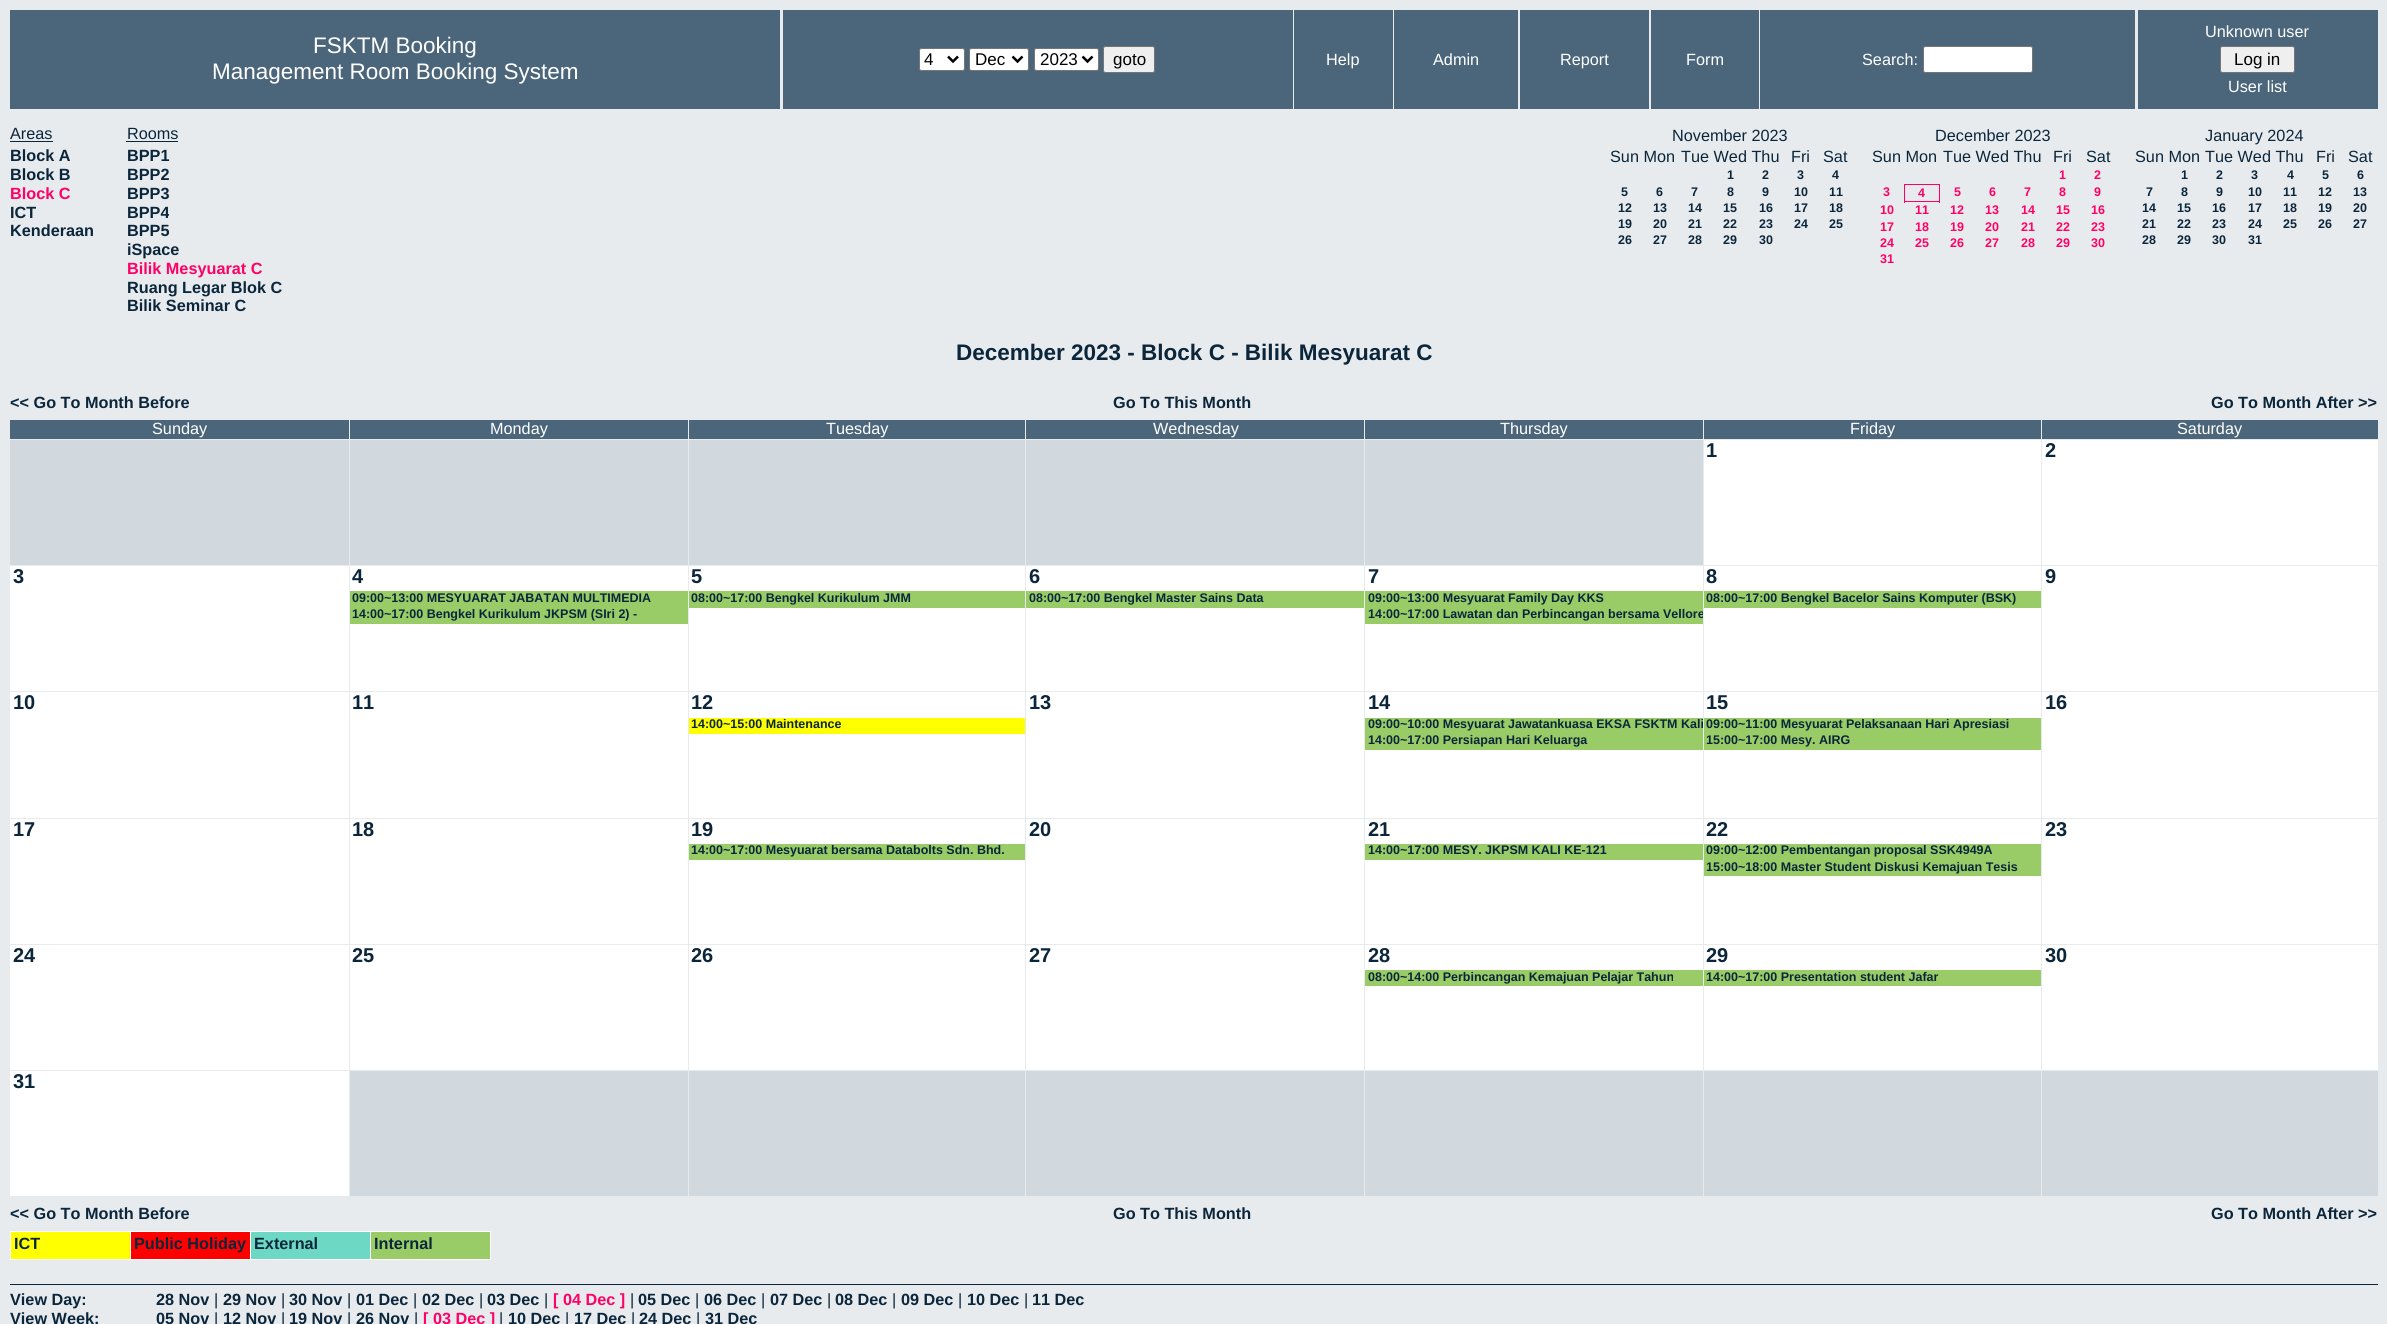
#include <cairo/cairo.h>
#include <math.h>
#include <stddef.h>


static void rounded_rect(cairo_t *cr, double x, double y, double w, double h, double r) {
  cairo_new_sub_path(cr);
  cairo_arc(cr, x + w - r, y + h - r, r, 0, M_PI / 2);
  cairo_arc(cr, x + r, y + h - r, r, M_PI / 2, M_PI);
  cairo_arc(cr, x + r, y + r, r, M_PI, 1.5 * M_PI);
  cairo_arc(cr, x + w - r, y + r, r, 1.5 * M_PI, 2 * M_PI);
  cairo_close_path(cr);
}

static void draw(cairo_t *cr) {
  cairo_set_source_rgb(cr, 231 / 255.0, 235 / 255.0, 238 / 255.0);
  cairo_paint(cr);
  cairo_set_source_rgb(cr, 75 / 255.0, 102 / 255.0, 123 / 255.0);
  cairo_rectangle(cr, 10, 10, 770, 99);
  cairo_fill(cr);
  cairo_rectangle(cr, 783, 10, 510, 99);
  cairo_fill(cr);
  cairo_set_source_rgb(cr, 1, 1, 1);
  rounded_rect(cr, 919.5, 48.5, 45, 22, 2);
  cairo_fill_preserve(cr);
  cairo_set_source_rgb(cr, 118 / 255.0, 118 / 255.0, 118 / 255.0);
  cairo_set_line_width(cr, 1);
  cairo_stroke(cr);
  cairo_new_path(cr);
  cairo_move_to(cr, 948, 56.5);
  cairo_line_to(cr, 953, 61.5);
  cairo_line_to(cr, 958, 56.5);
  cairo_set_source_rgb(cr, 0, 0, 0);
  cairo_set_line_width(cr, 2.5);
  cairo_stroke(cr);
  cairo_set_source_rgb(cr, 1, 1, 1);
  rounded_rect(cr, 969.5, 48.5, 59, 22, 2);
  cairo_fill_preserve(cr);
  cairo_set_source_rgb(cr, 118 / 255.0, 118 / 255.0, 118 / 255.0);
  cairo_set_line_width(cr, 1);
  cairo_stroke(cr);
  cairo_new_path(cr);
  cairo_move_to(cr, 1012.5, 56.5);
  cairo_line_to(cr, 1017.5, 61.5);
  cairo_line_to(cr, 1022.5, 56.5);
  cairo_set_source_rgb(cr, 0, 0, 0);
  cairo_set_line_width(cr, 2.5);
  cairo_stroke(cr);
  cairo_set_source_rgb(cr, 1, 1, 1);
  rounded_rect(cr, 1034.5, 48.5, 64, 22, 2);
  cairo_fill_preserve(cr);
  cairo_set_source_rgb(cr, 118 / 255.0, 118 / 255.0, 118 / 255.0);
  cairo_set_line_width(cr, 1);
  cairo_stroke(cr);
  cairo_new_path(cr);
  cairo_move_to(cr, 1082.5, 56.5);
  cairo_line_to(cr, 1087.5, 61.5);
  cairo_line_to(cr, 1092.5, 56.5);
  cairo_set_source_rgb(cr, 0, 0, 0);
  cairo_set_line_width(cr, 2.5);
  cairo_stroke(cr);
  cairo_set_source_rgb(cr, 239 / 255.0, 239 / 255.0, 239 / 255.0);
  rounded_rect(cr, 1103.5, 46.5, 51, 26, 2);
  cairo_fill_preserve(cr);
  cairo_set_source_rgb(cr, 118 / 255.0, 118 / 255.0, 118 / 255.0);
  cairo_set_line_width(cr, 1);
  cairo_stroke(cr);
  cairo_set_source_rgb(cr, 75 / 255.0, 102 / 255.0, 123 / 255.0);
  cairo_rectangle(cr, 1294, 10, 99, 99);
  cairo_fill(cr);
  cairo_rectangle(cr, 1394, 10, 124, 99);
  cairo_fill(cr);
  cairo_rectangle(cr, 1520, 10, 129, 99);
  cairo_fill(cr);
  cairo_rectangle(cr, 1651, 10, 108, 99);
  cairo_fill(cr);
  cairo_rectangle(cr, 1760, 10, 375, 99);
  cairo_fill(cr);
  cairo_set_source_rgb(cr, 1, 1, 1);
  rounded_rect(cr, 1923.5, 46.5, 109, 26, 2);
  cairo_fill_preserve(cr);
  cairo_set_source_rgb(cr, 118 / 255.0, 118 / 255.0, 118 / 255.0);
  cairo_stroke(cr);
  cairo_set_source_rgb(cr, 75 / 255.0, 102 / 255.0, 123 / 255.0);
  cairo_rectangle(cr, 2138, 10, 240, 99);
  cairo_fill(cr);
  cairo_set_source_rgb(cr, 239 / 255.0, 239 / 255.0, 239 / 255.0);
  rounded_rect(cr, 2220.5, 46.5, 74, 26, 2);
  cairo_fill_preserve(cr);
  cairo_set_source_rgb(cr, 118 / 255.0, 118 / 255.0, 118 / 255.0);
  cairo_stroke(cr);
  cairo_set_source_rgb(cr, 11 / 255.0, 38 / 255.0, 59 / 255.0);
  cairo_rectangle(cr, 10, 141, 43, 1);
  cairo_fill(cr);
  cairo_rectangle(cr, 126, 141, 52, 1);
  cairo_fill(cr);
  cairo_set_source_rgb(cr, 1, 0, 102 / 255.0);
  cairo_rectangle(cr, 1904, 184, 36, 1);
  cairo_fill(cr);
  cairo_rectangle(cr, 1939, 184, 1, 19);
  cairo_fill(cr);
  cairo_rectangle(cr, 1904, 201, 36, 1);
  cairo_fill(cr);
  cairo_rectangle(cr, 1904, 184, 1, 19);
  cairo_fill(cr);
  cairo_set_source_rgb(cr, 75 / 255.0, 102 / 255.0, 123 / 255.0);
  cairo_rectangle(cr, 10, 420, 339, 19);
  cairo_fill(cr);
  cairo_rectangle(cr, 350, 420, 338, 19);
  cairo_fill(cr);
  cairo_rectangle(cr, 689, 420, 336, 19);
  cairo_fill(cr);
  cairo_rectangle(cr, 1026, 420, 338, 19);
  cairo_fill(cr);
  cairo_rectangle(cr, 1365, 420, 338, 19);
  cairo_fill(cr);
  cairo_rectangle(cr, 1704, 420, 337, 19);
  cairo_fill(cr);
  cairo_rectangle(cr, 2042, 420, 336, 19);
  cairo_fill(cr);
  cairo_set_source_rgb(cr, 209 / 255.0, 217 / 255.0, 222 / 255.0);
  cairo_rectangle(cr, 10, 440, 339, 125);
  cairo_fill(cr);
  cairo_rectangle(cr, 350, 440, 338, 125);
  cairo_fill(cr);
  cairo_rectangle(cr, 689, 440, 336, 125);
  cairo_fill(cr);
  cairo_rectangle(cr, 1026, 440, 338, 125);
  cairo_fill(cr);
  cairo_rectangle(cr, 1365, 440, 338, 125);
  cairo_fill(cr);
  cairo_set_source_rgb(cr, 1, 1, 1);
  cairo_rectangle(cr, 1704, 440, 337, 125);
  cairo_fill(cr);
  cairo_rectangle(cr, 2042, 440, 336, 125);
  cairo_fill(cr);
  cairo_rectangle(cr, 10, 566, 339, 125);
  cairo_fill(cr);
  cairo_rectangle(cr, 350, 566, 338, 125);
  cairo_fill(cr);
  cairo_set_source_rgb(cr, 153 / 255.0, 204 / 255.0, 102 / 255.0);
  cairo_rectangle(cr, 350, 591, 338, 33);
  cairo_fill(cr);
  cairo_set_source_rgb(cr, 1, 1, 1);
  cairo_rectangle(cr, 689, 566, 336, 125);
  cairo_fill(cr);
  cairo_set_source_rgb(cr, 153 / 255.0, 204 / 255.0, 102 / 255.0);
  cairo_rectangle(cr, 689, 591, 336, 17);
  cairo_fill(cr);
  cairo_set_source_rgb(cr, 1, 1, 1);
  cairo_rectangle(cr, 1026, 566, 338, 125);
  cairo_fill(cr);
  cairo_set_source_rgb(cr, 153 / 255.0, 204 / 255.0, 102 / 255.0);
  cairo_rectangle(cr, 1026, 591, 338, 17);
  cairo_fill(cr);
  cairo_set_source_rgb(cr, 1, 1, 1);
  cairo_rectangle(cr, 1365, 566, 338, 125);
  cairo_fill(cr);
  cairo_set_source_rgb(cr, 153 / 255.0, 204 / 255.0, 102 / 255.0);
  cairo_rectangle(cr, 1365, 591, 338, 33);
  cairo_fill(cr);
  cairo_set_source_rgb(cr, 1, 1, 1);
  cairo_rectangle(cr, 1704, 566, 337, 125);
  cairo_fill(cr);
  cairo_set_source_rgb(cr, 153 / 255.0, 204 / 255.0, 102 / 255.0);
  cairo_rectangle(cr, 1704, 591, 337, 17);
  cairo_fill(cr);
  cairo_set_source_rgb(cr, 1, 1, 1);
  cairo_rectangle(cr, 2042, 566, 336, 125);
  cairo_fill(cr);
  cairo_rectangle(cr, 10, 692, 339, 126);
  cairo_fill(cr);
  cairo_rectangle(cr, 350, 692, 338, 126);
  cairo_fill(cr);
  cairo_rectangle(cr, 689, 692, 336, 126);
  cairo_fill(cr);
  cairo_set_source_rgb(cr, 1, 1, 0);
  cairo_rectangle(cr, 689, 718, 336, 16);
  cairo_fill(cr);
  cairo_set_source_rgb(cr, 1, 1, 1);
  cairo_rectangle(cr, 1026, 692, 338, 126);
  cairo_fill(cr);
  cairo_rectangle(cr, 1365, 692, 338, 126);
  cairo_fill(cr);
  cairo_set_source_rgb(cr, 153 / 255.0, 204 / 255.0, 102 / 255.0);
  cairo_rectangle(cr, 1365, 718, 338, 32);
  cairo_fill(cr);
  cairo_set_source_rgb(cr, 1, 1, 1);
  cairo_rectangle(cr, 1704, 692, 337, 126);
  cairo_fill(cr);
  cairo_set_source_rgb(cr, 153 / 255.0, 204 / 255.0, 102 / 255.0);
  cairo_rectangle(cr, 1704, 718, 337, 32);
  cairo_fill(cr);
  cairo_set_source_rgb(cr, 1, 1, 1);
  cairo_rectangle(cr, 2042, 692, 336, 126);
  cairo_fill(cr);
  cairo_rectangle(cr, 10, 819, 339, 125);
  cairo_fill(cr);
  cairo_rectangle(cr, 350, 819, 338, 125);
  cairo_fill(cr);
  cairo_rectangle(cr, 689, 819, 336, 125);
  cairo_fill(cr);
  cairo_set_source_rgb(cr, 153 / 255.0, 204 / 255.0, 102 / 255.0);
  cairo_rectangle(cr, 689, 844, 336, 16);
  cairo_fill(cr);
  cairo_set_source_rgb(cr, 1, 1, 1);
  cairo_rectangle(cr, 1026, 819, 338, 125);
  cairo_fill(cr);
  cairo_rectangle(cr, 1365, 819, 338, 125);
  cairo_fill(cr);
  cairo_set_source_rgb(cr, 153 / 255.0, 204 / 255.0, 102 / 255.0);
  cairo_rectangle(cr, 1365, 844, 338, 16);
  cairo_fill(cr);
  cairo_set_source_rgb(cr, 1, 1, 1);
  cairo_rectangle(cr, 1704, 819, 337, 125);
  cairo_fill(cr);
  cairo_set_source_rgb(cr, 153 / 255.0, 204 / 255.0, 102 / 255.0);
  cairo_rectangle(cr, 1704, 844, 337, 32);
  cairo_fill(cr);
  cairo_set_source_rgb(cr, 1, 1, 1);
  cairo_rectangle(cr, 2042, 819, 336, 125);
  cairo_fill(cr);
  cairo_rectangle(cr, 10, 945, 339, 125);
  cairo_fill(cr);
  cairo_rectangle(cr, 350, 945, 338, 125);
  cairo_fill(cr);
  cairo_rectangle(cr, 689, 945, 336, 125);
  cairo_fill(cr);
  cairo_rectangle(cr, 1026, 945, 338, 125);
  cairo_fill(cr);
  cairo_rectangle(cr, 1365, 945, 338, 125);
  cairo_fill(cr);
  cairo_set_source_rgb(cr, 153 / 255.0, 204 / 255.0, 102 / 255.0);
  cairo_rectangle(cr, 1365, 970, 338, 16);
  cairo_fill(cr);
  cairo_set_source_rgb(cr, 1, 1, 1);
  cairo_rectangle(cr, 1704, 945, 337, 125);
  cairo_fill(cr);
  cairo_set_source_rgb(cr, 153 / 255.0, 204 / 255.0, 102 / 255.0);
  cairo_rectangle(cr, 1704, 970, 337, 16);
  cairo_fill(cr);
  cairo_set_source_rgb(cr, 1, 1, 1);
  cairo_rectangle(cr, 2042, 945, 336, 125);
  cairo_fill(cr);
  cairo_rectangle(cr, 10, 1071, 339, 125);
  cairo_fill(cr);
  cairo_set_source_rgb(cr, 209 / 255.0, 217 / 255.0, 222 / 255.0);
  cairo_rectangle(cr, 350, 1071, 338, 125);
  cairo_fill(cr);
  cairo_rectangle(cr, 689, 1071, 336, 125);
  cairo_fill(cr);
  cairo_rectangle(cr, 1026, 1071, 338, 125);
  cairo_fill(cr);
  cairo_rectangle(cr, 1365, 1071, 338, 125);
  cairo_fill(cr);
  cairo_rectangle(cr, 1704, 1071, 337, 125);
  cairo_fill(cr);
  cairo_rectangle(cr, 2042, 1071, 336, 125);
  cairo_fill(cr);
  cairo_set_source_rgb(cr, 1, 1, 0);
  cairo_rectangle(cr, 11, 1232, 119, 27);
  cairo_fill(cr);
  cairo_set_source_rgb(cr, 1, 1, 1);
  cairo_rectangle(cr, 370, 1231, 121, 1);
  cairo_fill(cr);
  cairo_rectangle(cr, 490, 1231, 1, 29);
  cairo_fill(cr);
  cairo_rectangle(cr, 370, 1259, 121, 1);
  cairo_fill(cr);
  cairo_rectangle(cr, 370, 1231, 1, 29);
  cairo_fill(cr);
  cairo_rectangle(cr, 250, 1231, 121, 1);
  cairo_fill(cr);
  cairo_rectangle(cr, 250, 1259, 121, 1);
  cairo_fill(cr);
  cairo_rectangle(cr, 250, 1231, 1, 29);
  cairo_fill(cr);
  cairo_rectangle(cr, 130, 1231, 121, 1);
  cairo_fill(cr);
  cairo_rectangle(cr, 130, 1259, 121, 1);
  cairo_fill(cr);
  cairo_rectangle(cr, 130, 1231, 1, 29);
  cairo_fill(cr);
  cairo_rectangle(cr, 10, 1231, 121, 1);
  cairo_fill(cr);
  cairo_rectangle(cr, 10, 1259, 121, 1);
  cairo_fill(cr);
  cairo_rectangle(cr, 10, 1231, 1, 29);
  cairo_fill(cr);
  cairo_set_source_rgb(cr, 1, 0, 0);
  cairo_rectangle(cr, 131, 1232, 119, 27);
  cairo_fill(cr);
  cairo_set_source_rgb(cr, 109 / 255.0, 217 / 255.0, 196 / 255.0);
  cairo_rectangle(cr, 251, 1232, 119, 27);
  cairo_fill(cr);
  cairo_set_source_rgb(cr, 153 / 255.0, 204 / 255.0, 102 / 255.0);
  cairo_rectangle(cr, 371, 1232, 119, 27);
  cairo_fill(cr);
  cairo_set_source_rgb(cr, 11 / 255.0, 38 / 255.0, 59 / 255.0);
  cairo_rectangle(cr, 10, 1284, 2368, 1);
  cairo_fill(cr);
  cairo_select_font_face(cr, "Liberation Sans", CAIRO_FONT_SLANT_NORMAL, CAIRO_FONT_WEIGHT_NORMAL);
  cairo_set_font_size(cr, 22.5);
  cairo_set_source_rgb(cr, 1, 1, 1);
  cairo_move_to(cr, 313, 53);
  cairo_show_text(cr, "FSKTM Booking");
  cairo_move_to(cr, 212, 79);
  cairo_show_text(cr, "Management Room Booking System");
  cairo_set_font_size(cr, 17);
  cairo_set_source_rgb(cr, 0, 0, 0);
  cairo_move_to(cr, 924, 65);
  cairo_show_text(cr, "4");
  cairo_move_to(cr, 975, 65);
  cairo_show_text(cr, "Dec");
  cairo_move_to(cr, 1040, 65);
  cairo_show_text(cr, "2023");
  cairo_move_to(cr, 1113, 65);
  cairo_show_text(cr, "goto");
  cairo_set_font_size(cr, 16.25);
  cairo_set_source_rgb(cr, 1, 1, 1);
  cairo_move_to(cr, 1326, 65);
  cairo_show_text(cr, "Help");
  cairo_move_to(cr, 1433, 65);
  cairo_show_text(cr, "Admin");
  cairo_move_to(cr, 1560, 65);
  cairo_show_text(cr, "Report");
  cairo_move_to(cr, 1686, 65);
  cairo_show_text(cr, "Form");
  cairo_move_to(cr, 1862, 65);
  cairo_show_text(cr, "Search:");
  cairo_move_to(cr, 2205, 37);
  cairo_show_text(cr, "Unknown user");
  cairo_set_font_size(cr, 17);
  cairo_set_source_rgb(cr, 0, 0, 0);
  cairo_move_to(cr, 2234, 65);
  cairo_show_text(cr, "Log in");
  cairo_set_font_size(cr, 16.25);
  cairo_set_source_rgb(cr, 1, 1, 1);
  cairo_move_to(cr, 2228, 92);
  cairo_show_text(cr, "User list");
  cairo_set_source_rgb(cr, 11 / 255.0, 38 / 255.0, 59 / 255.0);
  cairo_move_to(cr, 10, 139);
  cairo_show_text(cr, "Areas");
  cairo_select_font_face(cr, "Liberation Sans", CAIRO_FONT_SLANT_NORMAL, CAIRO_FONT_WEIGHT_BOLD);
  cairo_move_to(cr, 10, 161);
  cairo_show_text(cr, "Block A");
  cairo_move_to(cr, 10, 180);
  cairo_show_text(cr, "Block B");
  cairo_set_source_rgb(cr, 1, 0, 102 / 255.0);
  cairo_move_to(cr, 10, 199);
  cairo_show_text(cr, "Block C");
  cairo_set_source_rgb(cr, 11 / 255.0, 38 / 255.0, 59 / 255.0);
  cairo_move_to(cr, 10, 218);
  cairo_show_text(cr, "ICT");
  cairo_move_to(cr, 10, 236);
  cairo_show_text(cr, "Kenderaan");
  cairo_select_font_face(cr, "Liberation Sans", CAIRO_FONT_SLANT_NORMAL, CAIRO_FONT_WEIGHT_NORMAL);
  cairo_move_to(cr, 127, 139);
  cairo_show_text(cr, "Rooms");
  cairo_select_font_face(cr, "Liberation Sans", CAIRO_FONT_SLANT_NORMAL, CAIRO_FONT_WEIGHT_BOLD);
  cairo_move_to(cr, 127, 161);
  cairo_show_text(cr, "BPP1");
  cairo_move_to(cr, 127, 180);
  cairo_show_text(cr, "BPP2");
  cairo_move_to(cr, 127, 199);
  cairo_show_text(cr, "BPP3");
  cairo_move_to(cr, 127, 218);
  cairo_show_text(cr, "BPP4");
  cairo_move_to(cr, 127, 236);
  cairo_show_text(cr, "BPP5");
  cairo_move_to(cr, 127, 255);
  cairo_show_text(cr, "iSpace");
  cairo_set_source_rgb(cr, 1, 0, 102 / 255.0);
  cairo_move_to(cr, 127, 274);
  cairo_show_text(cr, "Bilik Mesyuarat C");
  cairo_set_source_rgb(cr, 11 / 255.0, 38 / 255.0, 59 / 255.0);
  cairo_move_to(cr, 127, 293);
  cairo_show_text(cr, "Ruang Legar Blok C");
  cairo_move_to(cr, 127, 311);
  cairo_show_text(cr, "Bilik Seminar C");
  cairo_select_font_face(cr, "Liberation Sans", CAIRO_FONT_SLANT_NORMAL, CAIRO_FONT_WEIGHT_NORMAL);
  cairo_move_to(cr, 1672, 141);
  cairo_show_text(cr, "November 2023");
  cairo_move_to(cr, 1610, 162);
  cairo_show_text(cr, "Sun Mon");
  cairo_move_to(cr, 1681, 162);
  cairo_show_text(cr, "Tue Wed Thu");
  cairo_move_to(cr, 1791, 162);
  cairo_show_text(cr, "Fri");
  cairo_move_to(cr, 1823, 162);
  cairo_show_text(cr, "Sat");
  cairo_select_font_face(cr, "Liberation Sans", CAIRO_FONT_SLANT_NORMAL, CAIRO_FONT_WEIGHT_BOLD);
  cairo_set_font_size(cr, 12.5);
  cairo_move_to(cr, 1727, 179);
  cairo_show_text(cr, "1");
  cairo_move_to(cr, 1762, 179);
  cairo_show_text(cr, "2");
  cairo_move_to(cr, 1797, 179);
  cairo_show_text(cr, "3");
  cairo_move_to(cr, 1832, 179);
  cairo_show_text(cr, "4");
  cairo_move_to(cr, 1621, 196);
  cairo_show_text(cr, "5");
  cairo_move_to(cr, 1656, 196);
  cairo_show_text(cr, "6");
  cairo_move_to(cr, 1691, 196);
  cairo_show_text(cr, "7");
  cairo_move_to(cr, 1727, 196);
  cairo_show_text(cr, "8");
  cairo_move_to(cr, 1762, 196);
  cairo_show_text(cr, "9");
  cairo_move_to(cr, 1794, 196);
  cairo_show_text(cr, "10");
  cairo_move_to(cr, 1829, 196);
  cairo_show_text(cr, "11");
  cairo_move_to(cr, 1618, 212);
  cairo_show_text(cr, "12");
  cairo_move_to(cr, 1653, 212);
  cairo_show_text(cr, "13");
  cairo_move_to(cr, 1688, 212);
  cairo_show_text(cr, "14");
  cairo_move_to(cr, 1723, 212);
  cairo_show_text(cr, "15");
  cairo_move_to(cr, 1759, 212);
  cairo_show_text(cr, "16");
  cairo_move_to(cr, 1794, 212);
  cairo_show_text(cr, "17");
  cairo_move_to(cr, 1829, 212);
  cairo_show_text(cr, "18");
  cairo_move_to(cr, 1618, 228);
  cairo_show_text(cr, "19");
  cairo_move_to(cr, 1653, 228);
  cairo_show_text(cr, "20");
  cairo_move_to(cr, 1688, 228);
  cairo_show_text(cr, "21");
  cairo_move_to(cr, 1723, 228);
  cairo_show_text(cr, "22");
  cairo_move_to(cr, 1759, 228);
  cairo_show_text(cr, "23");
  cairo_move_to(cr, 1794, 228);
  cairo_show_text(cr, "24");
  cairo_move_to(cr, 1829, 228);
  cairo_show_text(cr, "25");
  cairo_move_to(cr, 1618, 244);
  cairo_show_text(cr, "26");
  cairo_move_to(cr, 1653, 244);
  cairo_show_text(cr, "27");
  cairo_move_to(cr, 1688, 244);
  cairo_show_text(cr, "28");
  cairo_move_to(cr, 1723, 244);
  cairo_show_text(cr, "29");
  cairo_move_to(cr, 1759, 244);
  cairo_show_text(cr, "30");
  cairo_select_font_face(cr, "Liberation Sans", CAIRO_FONT_SLANT_NORMAL, CAIRO_FONT_WEIGHT_NORMAL);
  cairo_set_font_size(cr, 16.25);
  cairo_move_to(cr, 1935, 141);
  cairo_show_text(cr, "December 2023");
  cairo_move_to(cr, 1872, 162);
  cairo_show_text(cr, "Sun Mon");
  cairo_move_to(cr, 1943, 162);
  cairo_show_text(cr, "Tue Wed Thu");
  cairo_move_to(cr, 2053, 162);
  cairo_show_text(cr, "Fri");
  cairo_move_to(cr, 2086, 162);
  cairo_show_text(cr, "Sat");
  cairo_select_font_face(cr, "Liberation Sans", CAIRO_FONT_SLANT_NORMAL, CAIRO_FONT_WEIGHT_BOLD);
  cairo_set_font_size(cr, 12.5);
  cairo_set_source_rgb(cr, 1, 0, 102 / 255.0);
  cairo_move_to(cr, 2059, 179);
  cairo_show_text(cr, "1");
  cairo_move_to(cr, 2094, 179);
  cairo_show_text(cr, "2");
  cairo_move_to(cr, 1883, 196);
  cairo_show_text(cr, "3");
  cairo_move_to(cr, 1918, 197);
  cairo_show_text(cr, "4");
  cairo_move_to(cr, 1954, 196);
  cairo_show_text(cr, "5");
  cairo_move_to(cr, 1989, 196);
  cairo_show_text(cr, "6");
  cairo_move_to(cr, 2024, 196);
  cairo_show_text(cr, "7");
  cairo_move_to(cr, 2059, 196);
  cairo_show_text(cr, "8");
  cairo_move_to(cr, 2094, 196);
  cairo_show_text(cr, "9");
  cairo_move_to(cr, 1880, 214);
  cairo_show_text(cr, "10");
  cairo_move_to(cr, 1915, 214);
  cairo_show_text(cr, "11");
  cairo_move_to(cr, 1950, 214);
  cairo_show_text(cr, "12");
  cairo_move_to(cr, 1985, 214);
  cairo_show_text(cr, "13");
  cairo_move_to(cr, 2021, 214);
  cairo_show_text(cr, "14");
  cairo_move_to(cr, 2056, 214);
  cairo_show_text(cr, "15");
  cairo_move_to(cr, 2091, 214);
  cairo_show_text(cr, "16");
  cairo_move_to(cr, 1880, 231);
  cairo_show_text(cr, "17");
  cairo_move_to(cr, 1915, 231);
  cairo_show_text(cr, "18");
  cairo_move_to(cr, 1950, 231);
  cairo_show_text(cr, "19");
  cairo_move_to(cr, 1985, 231);
  cairo_show_text(cr, "20");
  cairo_move_to(cr, 2021, 231);
  cairo_show_text(cr, "21");
  cairo_move_to(cr, 2056, 231);
  cairo_show_text(cr, "22");
  cairo_move_to(cr, 2091, 231);
  cairo_show_text(cr, "23");
  cairo_move_to(cr, 1880, 247);
  cairo_show_text(cr, "24");
  cairo_move_to(cr, 1915, 247);
  cairo_show_text(cr, "25");
  cairo_move_to(cr, 1950, 247);
  cairo_show_text(cr, "26");
  cairo_move_to(cr, 1985, 247);
  cairo_show_text(cr, "27");
  cairo_move_to(cr, 2021, 247);
  cairo_show_text(cr, "28");
  cairo_move_to(cr, 2056, 247);
  cairo_show_text(cr, "29");
  cairo_move_to(cr, 2091, 247);
  cairo_show_text(cr, "30");
  cairo_move_to(cr, 1880, 263);
  cairo_show_text(cr, "31");
  cairo_select_font_face(cr, "Liberation Sans", CAIRO_FONT_SLANT_NORMAL, CAIRO_FONT_WEIGHT_NORMAL);
  cairo_set_font_size(cr, 16.25);
  cairo_set_source_rgb(cr, 11 / 255.0, 38 / 255.0, 59 / 255.0);
  cairo_move_to(cr, 2205, 141);
  cairo_show_text(cr, "January 2024");
  cairo_move_to(cr, 2135, 162);
  cairo_show_text(cr, "Sun Mon");
  cairo_move_to(cr, 2205, 162);
  cairo_show_text(cr, "Tue Wed Thu");
  cairo_move_to(cr, 2316, 162);
  cairo_show_text(cr, "Fri");
  cairo_move_to(cr, 2348, 162);
  cairo_show_text(cr, "Sat");
  cairo_select_font_face(cr, "Liberation Sans", CAIRO_FONT_SLANT_NORMAL, CAIRO_FONT_WEIGHT_BOLD);
  cairo_set_font_size(cr, 12.5);
  cairo_move_to(cr, 2181, 179);
  cairo_show_text(cr, "1");
  cairo_move_to(cr, 2216, 179);
  cairo_show_text(cr, "2");
  cairo_move_to(cr, 2251, 179);
  cairo_show_text(cr, "3");
  cairo_move_to(cr, 2287, 179);
  cairo_show_text(cr, "4");
  cairo_move_to(cr, 2322, 179);
  cairo_show_text(cr, "5");
  cairo_move_to(cr, 2357, 179);
  cairo_show_text(cr, "6");
  cairo_move_to(cr, 2146, 196);
  cairo_show_text(cr, "7");
  cairo_move_to(cr, 2181, 196);
  cairo_show_text(cr, "8");
  cairo_move_to(cr, 2216, 196);
  cairo_show_text(cr, "9");
  cairo_move_to(cr, 2248, 196);
  cairo_show_text(cr, "10");
  cairo_move_to(cr, 2283, 196);
  cairo_show_text(cr, "11");
  cairo_move_to(cr, 2318, 196);
  cairo_show_text(cr, "12");
  cairo_move_to(cr, 2353, 196);
  cairo_show_text(cr, "13");
  cairo_move_to(cr, 2142, 212);
  cairo_show_text(cr, "14");
  cairo_move_to(cr, 2177, 212);
  cairo_show_text(cr, "15");
  cairo_move_to(cr, 2212, 212);
  cairo_show_text(cr, "16");
  cairo_move_to(cr, 2248, 212);
  cairo_show_text(cr, "17");
  cairo_move_to(cr, 2283, 212);
  cairo_show_text(cr, "18");
  cairo_move_to(cr, 2318, 212);
  cairo_show_text(cr, "19");
  cairo_move_to(cr, 2353, 212);
  cairo_show_text(cr, "20");
  cairo_move_to(cr, 2142, 228);
  cairo_show_text(cr, "21");
  cairo_move_to(cr, 2177, 228);
  cairo_show_text(cr, "22");
  cairo_move_to(cr, 2212, 228);
  cairo_show_text(cr, "23");
  cairo_move_to(cr, 2248, 228);
  cairo_show_text(cr, "24");
  cairo_move_to(cr, 2283, 228);
  cairo_show_text(cr, "25");
  cairo_move_to(cr, 2318, 228);
  cairo_show_text(cr, "26");
  cairo_move_to(cr, 2353, 228);
  cairo_show_text(cr, "27");
  cairo_move_to(cr, 2142, 244);
  cairo_show_text(cr, "28");
  cairo_move_to(cr, 2177, 244);
  cairo_show_text(cr, "29");
  cairo_move_to(cr, 2212, 244);
  cairo_show_text(cr, "30");
  cairo_move_to(cr, 2248, 244);
  cairo_show_text(cr, "31");
  cairo_set_font_size(cr, 22.5);
  cairo_move_to(cr, 956, 360);
  cairo_show_text(cr, "December 2023 - Block C - Bilik Mesyuarat C");
  cairo_set_font_size(cr, 16.25);
  cairo_move_to(cr, 10, 408);
  cairo_show_text(cr, "<< Go To Month Before");
  cairo_move_to(cr, 1113, 408);
  cairo_show_text(cr, "Go To This Month");
  cairo_move_to(cr, 2211, 408);
  cairo_show_text(cr, "Go To Month After >>");
  cairo_select_font_face(cr, "Liberation Sans", CAIRO_FONT_SLANT_NORMAL, CAIRO_FONT_WEIGHT_NORMAL);
  cairo_set_source_rgb(cr, 1, 1, 1);
  cairo_move_to(cr, 152, 434);
  cairo_show_text(cr, "Sunday");
  cairo_move_to(cr, 490, 434);
  cairo_show_text(cr, "Monday");
  cairo_move_to(cr, 826, 434);
  cairo_show_text(cr, "Tuesday");
  cairo_move_to(cr, 1153, 434);
  cairo_show_text(cr, "Wednesday");
  cairo_move_to(cr, 1500, 434);
  cairo_show_text(cr, "Thursday");
  cairo_move_to(cr, 1850, 434);
  cairo_show_text(cr, "Friday");
  cairo_move_to(cr, 2177, 434);
  cairo_show_text(cr, "Saturday");
  cairo_select_font_face(cr, "Liberation Sans", CAIRO_FONT_SLANT_NORMAL, CAIRO_FONT_WEIGHT_BOLD);
  cairo_set_font_size(cr, 20);
  cairo_set_source_rgb(cr, 11 / 255.0, 38 / 255.0, 59 / 255.0);
  cairo_move_to(cr, 1706, 457);
  cairo_show_text(cr, "1");
  cairo_move_to(cr, 2045, 457);
  cairo_show_text(cr, "2");
  cairo_move_to(cr, 13, 583);
  cairo_show_text(cr, "3");
  cairo_move_to(cr, 352, 583);
  cairo_show_text(cr, "4");
  cairo_set_font_size(cr, 12.5);
  cairo_move_to(cr, 352, 602);
  cairo_show_text(cr, "09:00~13:00 MESYUARAT JABATAN MULTIMEDIA");
  cairo_move_to(cr, 352, 618);
  cairo_show_text(cr, "14:00~17:00 Bengkel Kurikulum JKPSM (SIri 2) -");
  cairo_set_font_size(cr, 20);
  cairo_move_to(cr, 691, 583);
  cairo_show_text(cr, "5");
  cairo_set_font_size(cr, 12.5);
  cairo_move_to(cr, 691, 602);
  cairo_show_text(cr, "08:00~17:00 Bengkel Kurikulum JMM");
  cairo_set_font_size(cr, 20);
  cairo_move_to(cr, 1029, 583);
  cairo_show_text(cr, "6");
  cairo_set_font_size(cr, 12.5);
  cairo_move_to(cr, 1029, 602);
  cairo_show_text(cr, "08:00~17:00 Bengkel Master Sains Data");
  cairo_set_font_size(cr, 20);
  cairo_move_to(cr, 1368, 583);
  cairo_show_text(cr, "7");
  cairo_set_font_size(cr, 12.5);
  cairo_move_to(cr, 1368, 602);
  cairo_show_text(cr, "09:00~13:00 Mesyuarat Family Day KKS");
  cairo_save(cr);
  cairo_rectangle(cr, 1365, 608, 338, 16);
  cairo_clip(cr);
  cairo_move_to(cr, 1368, 618);
  cairo_show_text(cr, "14:00~17:00 Lawatan dan Perbincangan bersama Vellore");
  cairo_restore(cr);
  cairo_set_font_size(cr, 20);
  cairo_move_to(cr, 1706, 583);
  cairo_show_text(cr, "8");
  cairo_set_font_size(cr, 12.5);
  cairo_move_to(cr, 1706, 602);
  cairo_show_text(cr, "08:00~17:00 Bengkel Bacelor Sains Komputer (BSK)");
  cairo_set_font_size(cr, 20);
  cairo_move_to(cr, 2045, 583);
  cairo_show_text(cr, "9");
  cairo_move_to(cr, 13, 709);
  cairo_show_text(cr, "10");
  cairo_move_to(cr, 352, 709);
  cairo_show_text(cr, "11");
  cairo_move_to(cr, 691, 709);
  cairo_show_text(cr, "12");
  cairo_set_font_size(cr, 12.5);
  cairo_move_to(cr, 691, 728);
  cairo_show_text(cr, "14:00~15:00 Maintenance");
  cairo_set_font_size(cr, 20);
  cairo_move_to(cr, 1029, 709);
  cairo_show_text(cr, "13");
  cairo_move_to(cr, 1368, 709);
  cairo_show_text(cr, "14");
  cairo_set_font_size(cr, 12.5);
  cairo_move_to(cr, 1368, 728);
  cairo_show_text(cr, "09:00~10:00 Mesyuarat Jawatankuasa EKSA FSKTM Kali");
  cairo_move_to(cr, 1368, 744);
  cairo_show_text(cr, "14:00~17:00 Persiapan Hari Keluarga");
  cairo_set_font_size(cr, 20);
  cairo_move_to(cr, 1706, 709);
  cairo_show_text(cr, "15");
  cairo_set_font_size(cr, 12.5);
  cairo_move_to(cr, 1706, 728);
  cairo_show_text(cr, "09:00~11:00 Mesyuarat Pelaksanaan Hari Apresiasi");
  cairo_move_to(cr, 1706, 744);
  cairo_show_text(cr, "15:00~17:00 Mesy. AIRG");
  cairo_set_font_size(cr, 20);
  cairo_move_to(cr, 2045, 709);
  cairo_show_text(cr, "16");
  cairo_move_to(cr, 13, 836);
  cairo_show_text(cr, "17");
  cairo_move_to(cr, 352, 836);
  cairo_show_text(cr, "18");
  cairo_move_to(cr, 691, 836);
  cairo_show_text(cr, "19");
  cairo_set_font_size(cr, 12.5);
  cairo_move_to(cr, 691, 854);
  cairo_show_text(cr, "14:00~17:00 Mesyuarat bersama Databolts Sdn. Bhd.");
  cairo_set_font_size(cr, 20);
  cairo_move_to(cr, 1029, 836);
  cairo_show_text(cr, "20");
  cairo_move_to(cr, 1368, 836);
  cairo_show_text(cr, "21");
  cairo_set_font_size(cr, 12.5);
  cairo_move_to(cr, 1368, 854);
  cairo_show_text(cr, "14:00~17:00 MESY. JKPSM KALI KE-121");
  cairo_set_font_size(cr, 20);
  cairo_move_to(cr, 1706, 836);
  cairo_show_text(cr, "22");
  cairo_set_font_size(cr, 12.5);
  cairo_move_to(cr, 1706, 854);
  cairo_show_text(cr, "09:00~12:00 Pembentangan proposal SSK4949A");
  cairo_move_to(cr, 1706, 871);
  cairo_show_text(cr, "15:00~18:00 Master Student Diskusi Kemajuan Tesis");
  cairo_set_font_size(cr, 20);
  cairo_move_to(cr, 2045, 836);
  cairo_show_text(cr, "23");
  cairo_move_to(cr, 13, 962);
  cairo_show_text(cr, "24");
  cairo_move_to(cr, 352, 962);
  cairo_show_text(cr, "25");
  cairo_move_to(cr, 691, 962);
  cairo_show_text(cr, "26");
  cairo_move_to(cr, 1029, 962);
  cairo_show_text(cr, "27");
  cairo_move_to(cr, 1368, 962);
  cairo_show_text(cr, "28");
  cairo_set_font_size(cr, 12.5);
  cairo_move_to(cr, 1368, 981);
  cairo_show_text(cr, "08:00~14:00 Perbincangan Kemajuan Pelajar Tahun");
  cairo_set_font_size(cr, 20);
  cairo_move_to(cr, 1706, 962);
  cairo_show_text(cr, "29");
  cairo_set_font_size(cr, 12.5);
  cairo_move_to(cr, 1706, 981);
  cairo_show_text(cr, "14:00~17:00 Presentation student Jafar");
  cairo_set_font_size(cr, 20);
  cairo_move_to(cr, 2045, 962);
  cairo_show_text(cr, "30");
  cairo_move_to(cr, 13, 1088);
  cairo_show_text(cr, "31");
  cairo_set_font_size(cr, 16.25);
  cairo_move_to(cr, 10, 1219);
  cairo_show_text(cr, "<< Go To Month Before");
  cairo_move_to(cr, 1113, 1219);
  cairo_show_text(cr, "Go To This Month");
  cairo_move_to(cr, 2211, 1219);
  cairo_show_text(cr, "Go To Month After >>");
  cairo_move_to(cr, 14, 1249);
  cairo_show_text(cr, "ICT");
  cairo_move_to(cr, 134, 1249);
  cairo_show_text(cr, "Public Holiday");
  cairo_move_to(cr, 254, 1249);
  cairo_show_text(cr, "External");
  cairo_move_to(cr, 374, 1249);
  cairo_show_text(cr, "Internal");
  cairo_move_to(cr, 10, 1305);
  cairo_show_text(cr, "View Day:");
  cairo_move_to(cr, 156, 1305);
  cairo_show_text(cr, "28 Nov");
  cairo_select_font_face(cr, "Liberation Sans", CAIRO_FONT_SLANT_NORMAL, CAIRO_FONT_WEIGHT_NORMAL);
  cairo_move_to(cr, 214, 1305);
  cairo_show_text(cr, "|");
  cairo_select_font_face(cr, "Liberation Sans", CAIRO_FONT_SLANT_NORMAL, CAIRO_FONT_WEIGHT_BOLD);
  cairo_move_to(cr, 223, 1305);
  cairo_show_text(cr, "29 Nov");
  cairo_select_font_face(cr, "Liberation Sans", CAIRO_FONT_SLANT_NORMAL, CAIRO_FONT_WEIGHT_NORMAL);
  cairo_move_to(cr, 281, 1305);
  cairo_show_text(cr, "|");
  cairo_select_font_face(cr, "Liberation Sans", CAIRO_FONT_SLANT_NORMAL, CAIRO_FONT_WEIGHT_BOLD);
  cairo_move_to(cr, 289, 1305);
  cairo_show_text(cr, "30 Nov");
  cairo_select_font_face(cr, "Liberation Sans", CAIRO_FONT_SLANT_NORMAL, CAIRO_FONT_WEIGHT_NORMAL);
  cairo_move_to(cr, 347, 1305);
  cairo_show_text(cr, "|");
  cairo_select_font_face(cr, "Liberation Sans", CAIRO_FONT_SLANT_NORMAL, CAIRO_FONT_WEIGHT_BOLD);
  cairo_move_to(cr, 356, 1305);
  cairo_show_text(cr, "01 Dec");
  cairo_select_font_face(cr, "Liberation Sans", CAIRO_FONT_SLANT_NORMAL, CAIRO_FONT_WEIGHT_NORMAL);
  cairo_move_to(cr, 413, 1305);
  cairo_show_text(cr, "|");
  cairo_select_font_face(cr, "Liberation Sans", CAIRO_FONT_SLANT_NORMAL, CAIRO_FONT_WEIGHT_BOLD);
  cairo_move_to(cr, 422, 1305);
  cairo_show_text(cr, "02 Dec");
  cairo_select_font_face(cr, "Liberation Sans", CAIRO_FONT_SLANT_NORMAL, CAIRO_FONT_WEIGHT_NORMAL);
  cairo_move_to(cr, 479, 1305);
  cairo_show_text(cr, "|");
  cairo_select_font_face(cr, "Liberation Sans", CAIRO_FONT_SLANT_NORMAL, CAIRO_FONT_WEIGHT_BOLD);
  cairo_move_to(cr, 487, 1305);
  cairo_show_text(cr, "03 Dec");
  cairo_select_font_face(cr, "Liberation Sans", CAIRO_FONT_SLANT_NORMAL, CAIRO_FONT_WEIGHT_NORMAL);
  cairo_move_to(cr, 544, 1305);
  cairo_show_text(cr, "|");
  cairo_select_font_face(cr, "Liberation Sans", CAIRO_FONT_SLANT_NORMAL, CAIRO_FONT_WEIGHT_BOLD);
  cairo_set_source_rgb(cr, 1, 0, 102 / 255.0);
  cairo_move_to(cr, 553, 1305);
  cairo_show_text(cr, "[ 04 Dec ]");
  cairo_select_font_face(cr, "Liberation Sans", CAIRO_FONT_SLANT_NORMAL, CAIRO_FONT_WEIGHT_NORMAL);
  cairo_set_source_rgb(cr, 11 / 255.0, 38 / 255.0, 59 / 255.0);
  cairo_move_to(cr, 630, 1305);
  cairo_show_text(cr, "|");
  cairo_select_font_face(cr, "Liberation Sans", CAIRO_FONT_SLANT_NORMAL, CAIRO_FONT_WEIGHT_BOLD);
  cairo_move_to(cr, 638, 1305);
  cairo_show_text(cr, "05 Dec");
  cairo_select_font_face(cr, "Liberation Sans", CAIRO_FONT_SLANT_NORMAL, CAIRO_FONT_WEIGHT_NORMAL);
  cairo_move_to(cr, 695, 1305);
  cairo_show_text(cr, "|");
  cairo_select_font_face(cr, "Liberation Sans", CAIRO_FONT_SLANT_NORMAL, CAIRO_FONT_WEIGHT_BOLD);
  cairo_move_to(cr, 704, 1305);
  cairo_show_text(cr, "06 Dec");
  cairo_select_font_face(cr, "Liberation Sans", CAIRO_FONT_SLANT_NORMAL, CAIRO_FONT_WEIGHT_NORMAL);
  cairo_move_to(cr, 761, 1305);
  cairo_show_text(cr, "|");
  cairo_select_font_face(cr, "Liberation Sans", CAIRO_FONT_SLANT_NORMAL, CAIRO_FONT_WEIGHT_BOLD);
  cairo_move_to(cr, 770, 1305);
  cairo_show_text(cr, "07 Dec");
  cairo_select_font_face(cr, "Liberation Sans", CAIRO_FONT_SLANT_NORMAL, CAIRO_FONT_WEIGHT_NORMAL);
  cairo_move_to(cr, 827, 1305);
  cairo_show_text(cr, "|");
  cairo_select_font_face(cr, "Liberation Sans", CAIRO_FONT_SLANT_NORMAL, CAIRO_FONT_WEIGHT_BOLD);
  cairo_move_to(cr, 835, 1305);
  cairo_show_text(cr, "08 Dec");
  cairo_select_font_face(cr, "Liberation Sans", CAIRO_FONT_SLANT_NORMAL, CAIRO_FONT_WEIGHT_NORMAL);
  cairo_move_to(cr, 892, 1305);
  cairo_show_text(cr, "|");
  cairo_select_font_face(cr, "Liberation Sans", CAIRO_FONT_SLANT_NORMAL, CAIRO_FONT_WEIGHT_BOLD);
  cairo_move_to(cr, 901, 1305);
  cairo_show_text(cr, "09 Dec");
  cairo_select_font_face(cr, "Liberation Sans", CAIRO_FONT_SLANT_NORMAL, CAIRO_FONT_WEIGHT_NORMAL);
  cairo_move_to(cr, 958, 1305);
  cairo_show_text(cr, "|");
  cairo_select_font_face(cr, "Liberation Sans", CAIRO_FONT_SLANT_NORMAL, CAIRO_FONT_WEIGHT_BOLD);
  cairo_move_to(cr, 967, 1305);
  cairo_show_text(cr, "10 Dec");
  cairo_select_font_face(cr, "Liberation Sans", CAIRO_FONT_SLANT_NORMAL, CAIRO_FONT_WEIGHT_NORMAL);
  cairo_move_to(cr, 1024, 1305);
  cairo_show_text(cr, "|");
  cairo_select_font_face(cr, "Liberation Sans", CAIRO_FONT_SLANT_NORMAL, CAIRO_FONT_WEIGHT_BOLD);
  cairo_move_to(cr, 1032, 1305);
  cairo_show_text(cr, "11 Dec");
  cairo_move_to(cr, 10, 1324);
  cairo_show_text(cr, "View Week:");
  cairo_move_to(cr, 156, 1324);
  cairo_show_text(cr, "05 Nov");
  cairo_select_font_face(cr, "Liberation Sans", CAIRO_FONT_SLANT_NORMAL, CAIRO_FONT_WEIGHT_NORMAL);
  cairo_move_to(cr, 214, 1324);
  cairo_show_text(cr, "|");
  cairo_select_font_face(cr, "Liberation Sans", CAIRO_FONT_SLANT_NORMAL, CAIRO_FONT_WEIGHT_BOLD);
  cairo_move_to(cr, 223, 1324);
  cairo_show_text(cr, "12 Nov");
  cairo_select_font_face(cr, "Liberation Sans", CAIRO_FONT_SLANT_NORMAL, CAIRO_FONT_WEIGHT_NORMAL);
  cairo_move_to(cr, 281, 1324);
  cairo_show_text(cr, "|");
  cairo_select_font_face(cr, "Liberation Sans", CAIRO_FONT_SLANT_NORMAL, CAIRO_FONT_WEIGHT_BOLD);
  cairo_move_to(cr, 289, 1324);
  cairo_show_text(cr, "19 Nov");
  cairo_select_font_face(cr, "Liberation Sans", CAIRO_FONT_SLANT_NORMAL, CAIRO_FONT_WEIGHT_NORMAL);
  cairo_move_to(cr, 347, 1324);
  cairo_show_text(cr, "|");
  cairo_select_font_face(cr, "Liberation Sans", CAIRO_FONT_SLANT_NORMAL, CAIRO_FONT_WEIGHT_BOLD);
  cairo_move_to(cr, 356, 1324);
  cairo_show_text(cr, "26 Nov");
  cairo_select_font_face(cr, "Liberation Sans", CAIRO_FONT_SLANT_NORMAL, CAIRO_FONT_WEIGHT_NORMAL);
  cairo_move_to(cr, 414, 1324);
  cairo_show_text(cr, "|");
  cairo_select_font_face(cr, "Liberation Sans", CAIRO_FONT_SLANT_NORMAL, CAIRO_FONT_WEIGHT_BOLD);
  cairo_set_source_rgb(cr, 1, 0, 102 / 255.0);
  cairo_move_to(cr, 423, 1324);
  cairo_show_text(cr, "[ 03 Dec ]");
  cairo_select_font_face(cr, "Liberation Sans", CAIRO_FONT_SLANT_NORMAL, CAIRO_FONT_WEIGHT_NORMAL);
  cairo_set_source_rgb(cr, 11 / 255.0, 38 / 255.0, 59 / 255.0);
  cairo_move_to(cr, 499, 1324);
  cairo_show_text(cr, "|");
  cairo_select_font_face(cr, "Liberation Sans", CAIRO_FONT_SLANT_NORMAL, CAIRO_FONT_WEIGHT_BOLD);
  cairo_move_to(cr, 508, 1324);
  cairo_show_text(cr, "10 Dec");
  cairo_select_font_face(cr, "Liberation Sans", CAIRO_FONT_SLANT_NORMAL, CAIRO_FONT_WEIGHT_NORMAL);
  cairo_move_to(cr, 565, 1324);
  cairo_show_text(cr, "|");
  cairo_select_font_face(cr, "Liberation Sans", CAIRO_FONT_SLANT_NORMAL, CAIRO_FONT_WEIGHT_BOLD);
  cairo_move_to(cr, 574, 1324);
  cairo_show_text(cr, "17 Dec");
  cairo_select_font_face(cr, "Liberation Sans", CAIRO_FONT_SLANT_NORMAL, CAIRO_FONT_WEIGHT_NORMAL);
  cairo_move_to(cr, 631, 1324);
  cairo_show_text(cr, "|");
  cairo_select_font_face(cr, "Liberation Sans", CAIRO_FONT_SLANT_NORMAL, CAIRO_FONT_WEIGHT_BOLD);
  cairo_move_to(cr, 639, 1324);
  cairo_show_text(cr, "24 Dec");
  cairo_select_font_face(cr, "Liberation Sans", CAIRO_FONT_SLANT_NORMAL, CAIRO_FONT_WEIGHT_NORMAL);
  cairo_move_to(cr, 696, 1324);
  cairo_show_text(cr, "|");
  cairo_select_font_face(cr, "Liberation Sans", CAIRO_FONT_SLANT_NORMAL, CAIRO_FONT_WEIGHT_BOLD);
  cairo_move_to(cr, 705, 1324);
  cairo_show_text(cr, "31 Dec");
}

int main(void) {
  cairo_surface_t *surface = cairo_image_surface_create(CAIRO_FORMAT_RGB24, 2387, 1324);
  cairo_t *cr = cairo_create(surface);
  cairo_font_options_t *options = cairo_font_options_create();
  cairo_font_options_set_hint_metrics(options, CAIRO_HINT_METRICS_OFF);
  cairo_font_options_set_hint_style(options, CAIRO_HINT_STYLE_NONE);
  cairo_set_font_options(cr, options);
  cairo_set_miter_limit(cr, 4);
  draw(cr);
  cairo_surface_write_to_png(surface, "out.png");
  cairo_font_options_destroy(options);
  cairo_destroy(cr);
  cairo_surface_destroy(surface);
  return 0;
}
